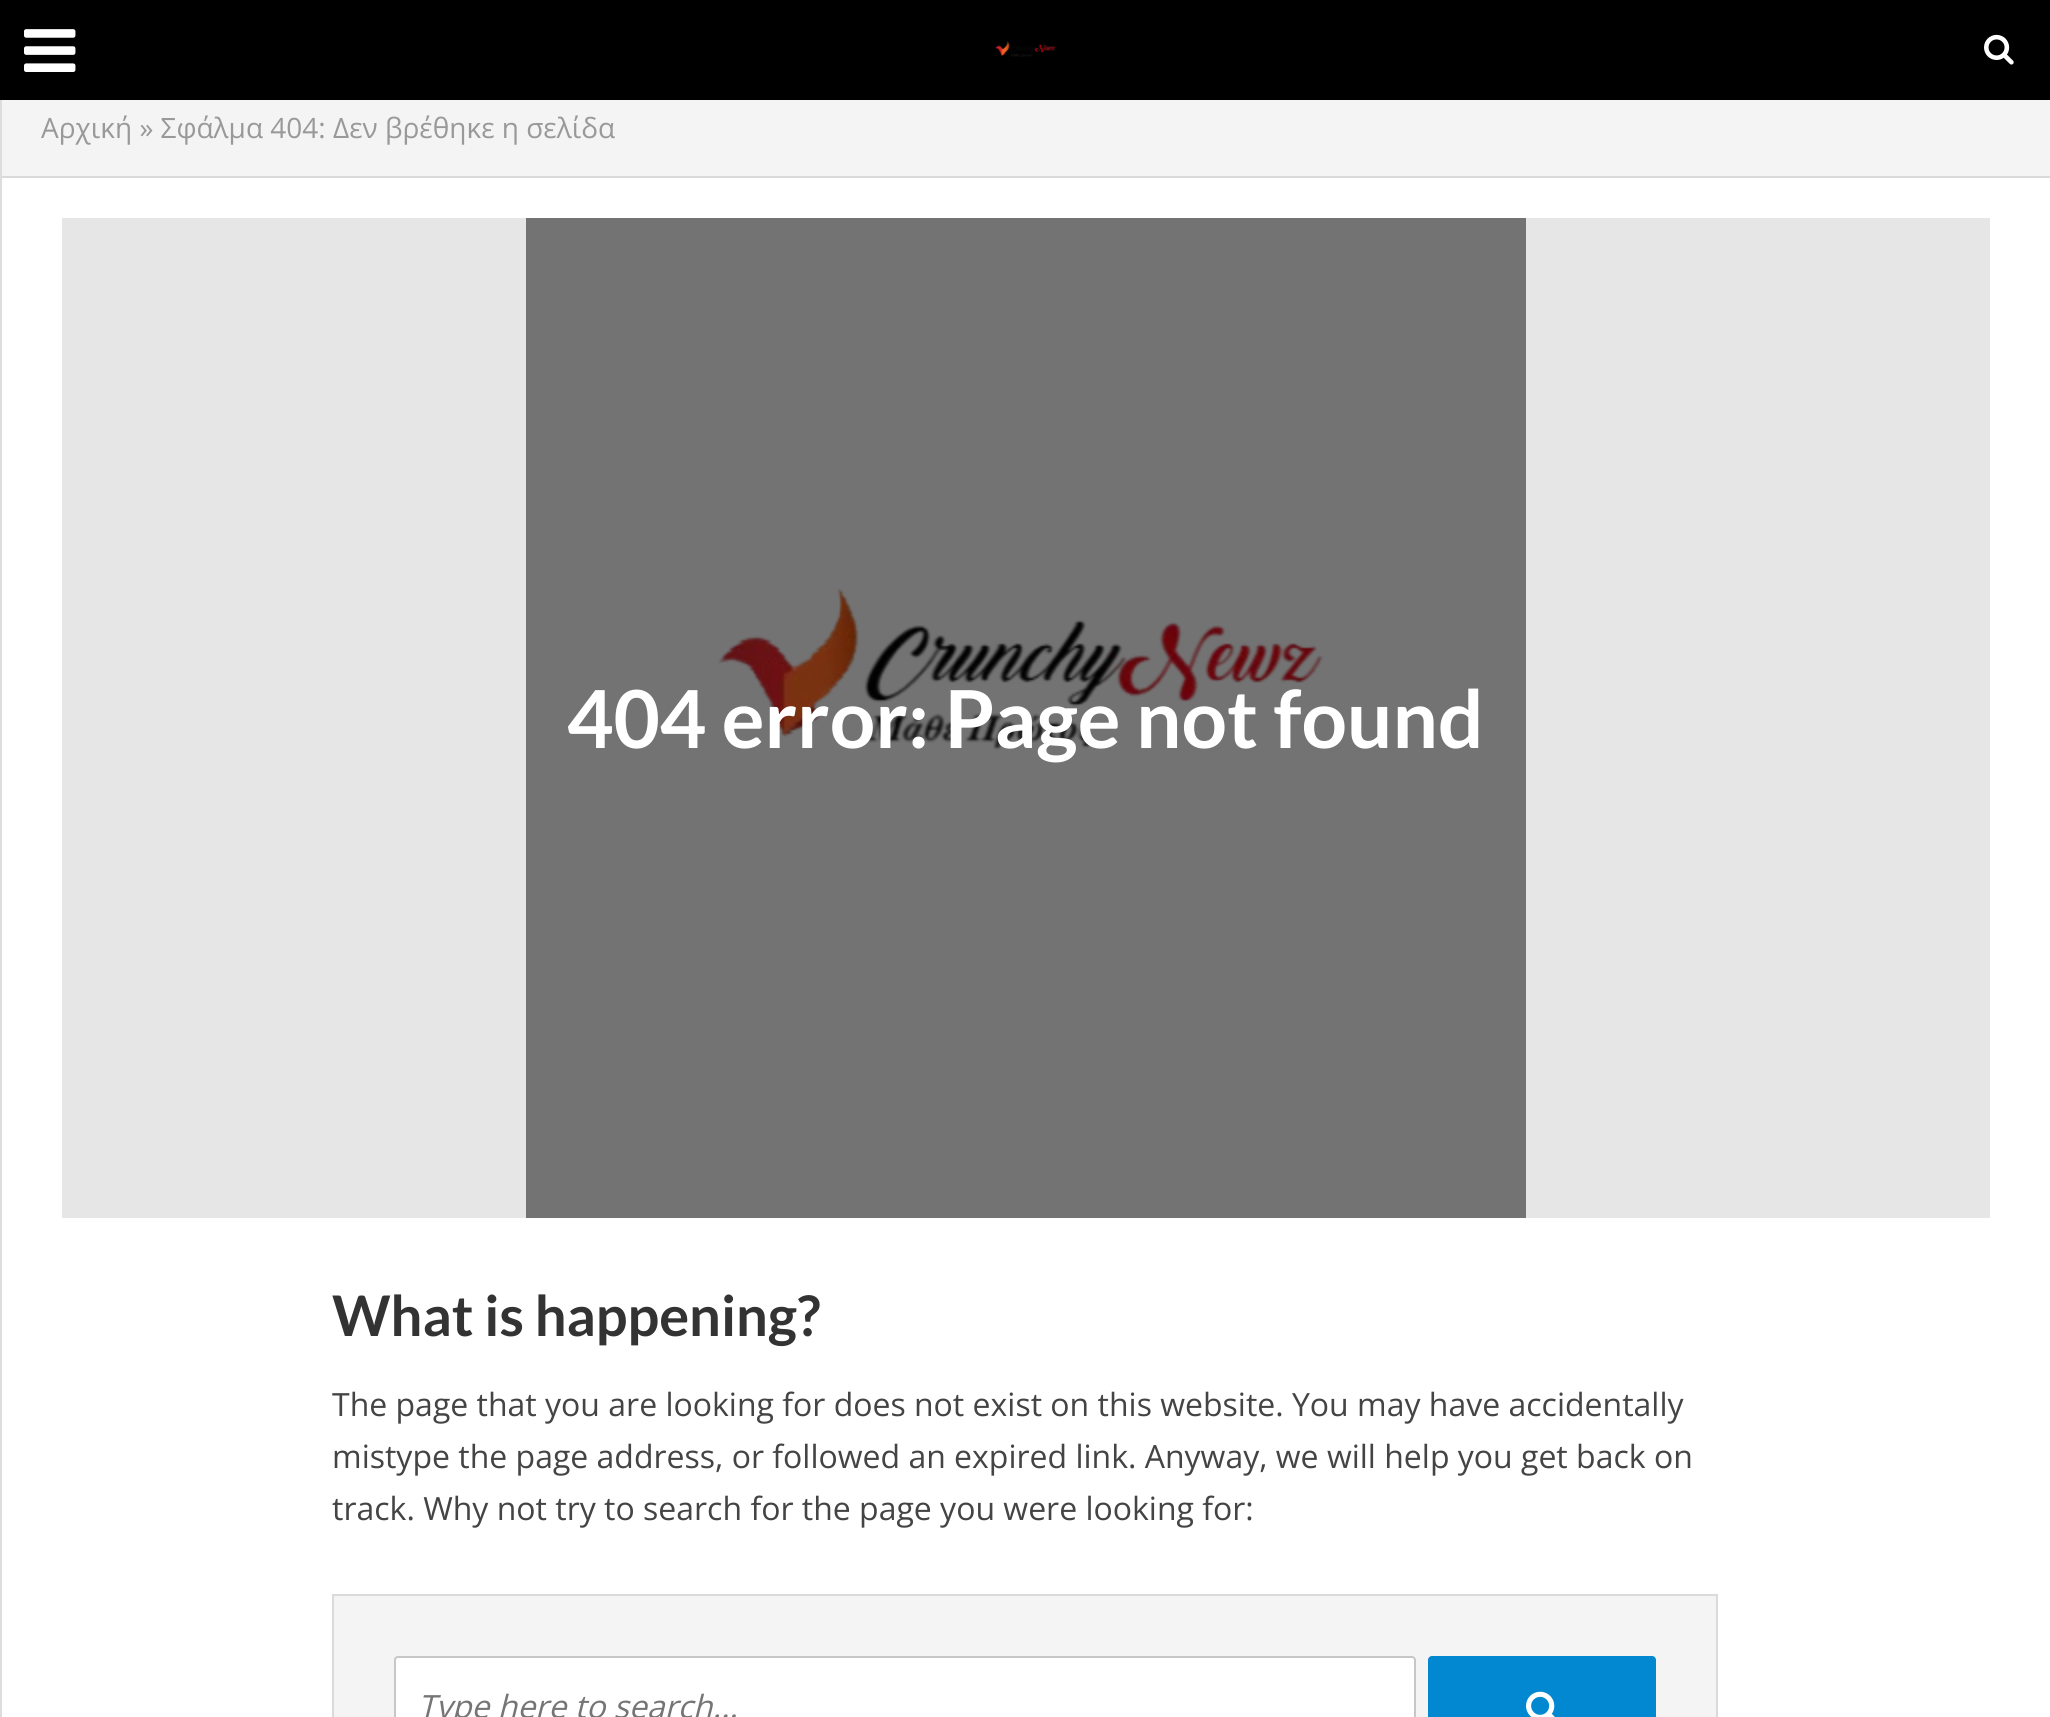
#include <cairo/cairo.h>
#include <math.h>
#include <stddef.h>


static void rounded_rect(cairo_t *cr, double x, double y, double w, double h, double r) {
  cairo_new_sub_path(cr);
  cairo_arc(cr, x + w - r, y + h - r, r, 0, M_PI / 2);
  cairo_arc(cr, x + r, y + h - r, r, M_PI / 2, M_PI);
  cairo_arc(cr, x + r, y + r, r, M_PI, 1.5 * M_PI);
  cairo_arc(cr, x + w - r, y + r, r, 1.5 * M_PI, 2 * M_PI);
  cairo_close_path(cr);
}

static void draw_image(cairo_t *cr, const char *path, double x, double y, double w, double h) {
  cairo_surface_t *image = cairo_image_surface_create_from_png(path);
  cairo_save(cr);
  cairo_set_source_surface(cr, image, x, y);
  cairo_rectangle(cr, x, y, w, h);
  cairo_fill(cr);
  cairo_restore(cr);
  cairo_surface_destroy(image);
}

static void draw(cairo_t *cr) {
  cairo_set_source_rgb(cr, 1, 1, 1);
  cairo_paint(cr);
  cairo_rectangle(cr, 1, 79, 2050, 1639);
  cairo_set_source_rgb(cr, 221 / 255.0, 221 / 255.0, 221 / 255.0);
  cairo_stroke(cr);
  cairo_set_source_rgb(cr, 0, 0, 0);
  cairo_rectangle(cr, 0, 0, 2050, 100);
  cairo_fill(cr);
  draw_image(cr, "images/1.png", 24, 29, 52, 43);
  draw_image(cr, "images/2.png", 995, 41, 61, 16);
  draw_image(cr, "images/3.png", 1984, 34, 30, 31);
  cairo_set_source_rgb(cr, 244 / 255.0, 244 / 255.0, 244 / 255.0);
  cairo_rectangle(cr, 2, 100, 2048, 76);
  cairo_fill(cr);
  cairo_set_source_rgb(cr, 218 / 255.0, 218 / 255.0, 218 / 255.0);
  cairo_rectangle(cr, 2, 176, 2048, 2);
  cairo_fill(cr);
  cairo_set_source_rgb(cr, 230 / 255.0, 230 / 255.0, 230 / 255.0);
  cairo_rectangle(cr, 62, 218, 1928, 1000);
  cairo_fill(cr);
  cairo_set_source_rgb(cr, 115 / 255.0, 115 / 255.0, 115 / 255.0);
  cairo_rectangle(cr, 526, 218, 1000, 1000);
  cairo_fill(cr);
  draw_image(cr, "images/4.png", 718, 588, 605, 162);
  cairo_set_source_rgb(cr, 244 / 255.0, 244 / 255.0, 244 / 255.0);
  cairo_rectangle(cr, 333, 1595, 1384, 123);
  cairo_fill_preserve(cr);
  cairo_set_source_rgb(cr, 218 / 255.0, 218 / 255.0, 218 / 255.0);
  cairo_stroke(cr);
  cairo_set_source_rgb(cr, 1, 1, 1);
  rounded_rect(cr, 394, 1656, 1022, 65, 4);
  cairo_fill(cr);
  rounded_rect(cr, 395, 1657, 1020, 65, 3);
  cairo_set_source_rgba(cr, 68 / 255.0, 68 / 255.0, 68 / 255.0, 0.3);
  cairo_stroke(cr);
  cairo_set_source_rgb(cr, 2 / 255.0, 136 / 255.0, 209 / 255.0);
  rounded_rect(cr, 1428, 1656, 228, 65, 4);
  cairo_fill(cr);
  draw_image(cr, "images/5.png", 1526, 1691, 29, 26);
  cairo_select_font_face(cr, "Open Sans", CAIRO_FONT_SLANT_NORMAL, CAIRO_FONT_WEIGHT_NORMAL);
  cairo_set_font_size(cr, 28);
  cairo_set_source_rgb(cr, 153 / 255.0, 153 / 255.0, 153 / 255.0);
  cairo_move_to(cr, 41, 138);
  cairo_show_text(cr, "Αρχική » Σφάλμα 404: Δεν βρέθηκε η σελίδα");
  cairo_select_font_face(cr, "Lato", CAIRO_FONT_SLANT_NORMAL, CAIRO_FONT_WEIGHT_BOLD);
  cairo_set_font_size(cr, 80);
  cairo_set_source_rgb(cr, 1, 1, 1);
  cairo_move_to(cr, 567, 748);
  cairo_show_text(cr, "404 error: Page not found");
  cairo_set_font_size(cr, 56);
  cairo_set_source_rgb(cr, 51 / 255.0, 51 / 255.0, 51 / 255.0);
  cairo_move_to(cr, 332, 1336);
  cairo_show_text(cr, "What is happening?");
  cairo_select_font_face(cr, "Open Sans", CAIRO_FONT_SLANT_NORMAL, CAIRO_FONT_WEIGHT_NORMAL);
  cairo_set_font_size(cr, 32);
  cairo_set_source_rgb(cr, 68 / 255.0, 68 / 255.0, 68 / 255.0);
  cairo_move_to(cr, 332, 1416);
  cairo_show_text(cr, "The page that you are looking for does not exist on this website. You may have accidentally");
  cairo_move_to(cr, 332, 1468);
  cairo_show_text(cr, "mistype the page address, or followed an expired link. Anyway, we will help you get back on");
  cairo_move_to(cr, 332, 1520);
  cairo_show_text(cr, "track. Why not try to search for the page you were looking for:");
  cairo_select_font_face(cr, "Open Sans", CAIRO_FONT_SLANT_ITALIC, CAIRO_FONT_WEIGHT_NORMAL);
  cairo_set_source_rgb(cr, 117 / 255.0, 117 / 255.0, 117 / 255.0);
  cairo_move_to(cr, 418, 1718);
  cairo_show_text(cr, "Type here to search...");
}

int main(void) {
  cairo_surface_t *surface = cairo_image_surface_create(CAIRO_FORMAT_RGB24, 2050, 1717);
  cairo_t *cr = cairo_create(surface);
  cairo_font_options_t *options = cairo_font_options_create();
  cairo_font_options_set_hint_metrics(options, CAIRO_HINT_METRICS_OFF);
  cairo_font_options_set_hint_style(options, CAIRO_HINT_STYLE_NONE);
  cairo_set_font_options(cr, options);
  cairo_set_miter_limit(cr, 4);
  draw(cr);
  cairo_surface_write_to_png(surface, "out.png");
  cairo_font_options_destroy(options);
  cairo_destroy(cr);
  cairo_surface_destroy(surface);
  return 0;
}
